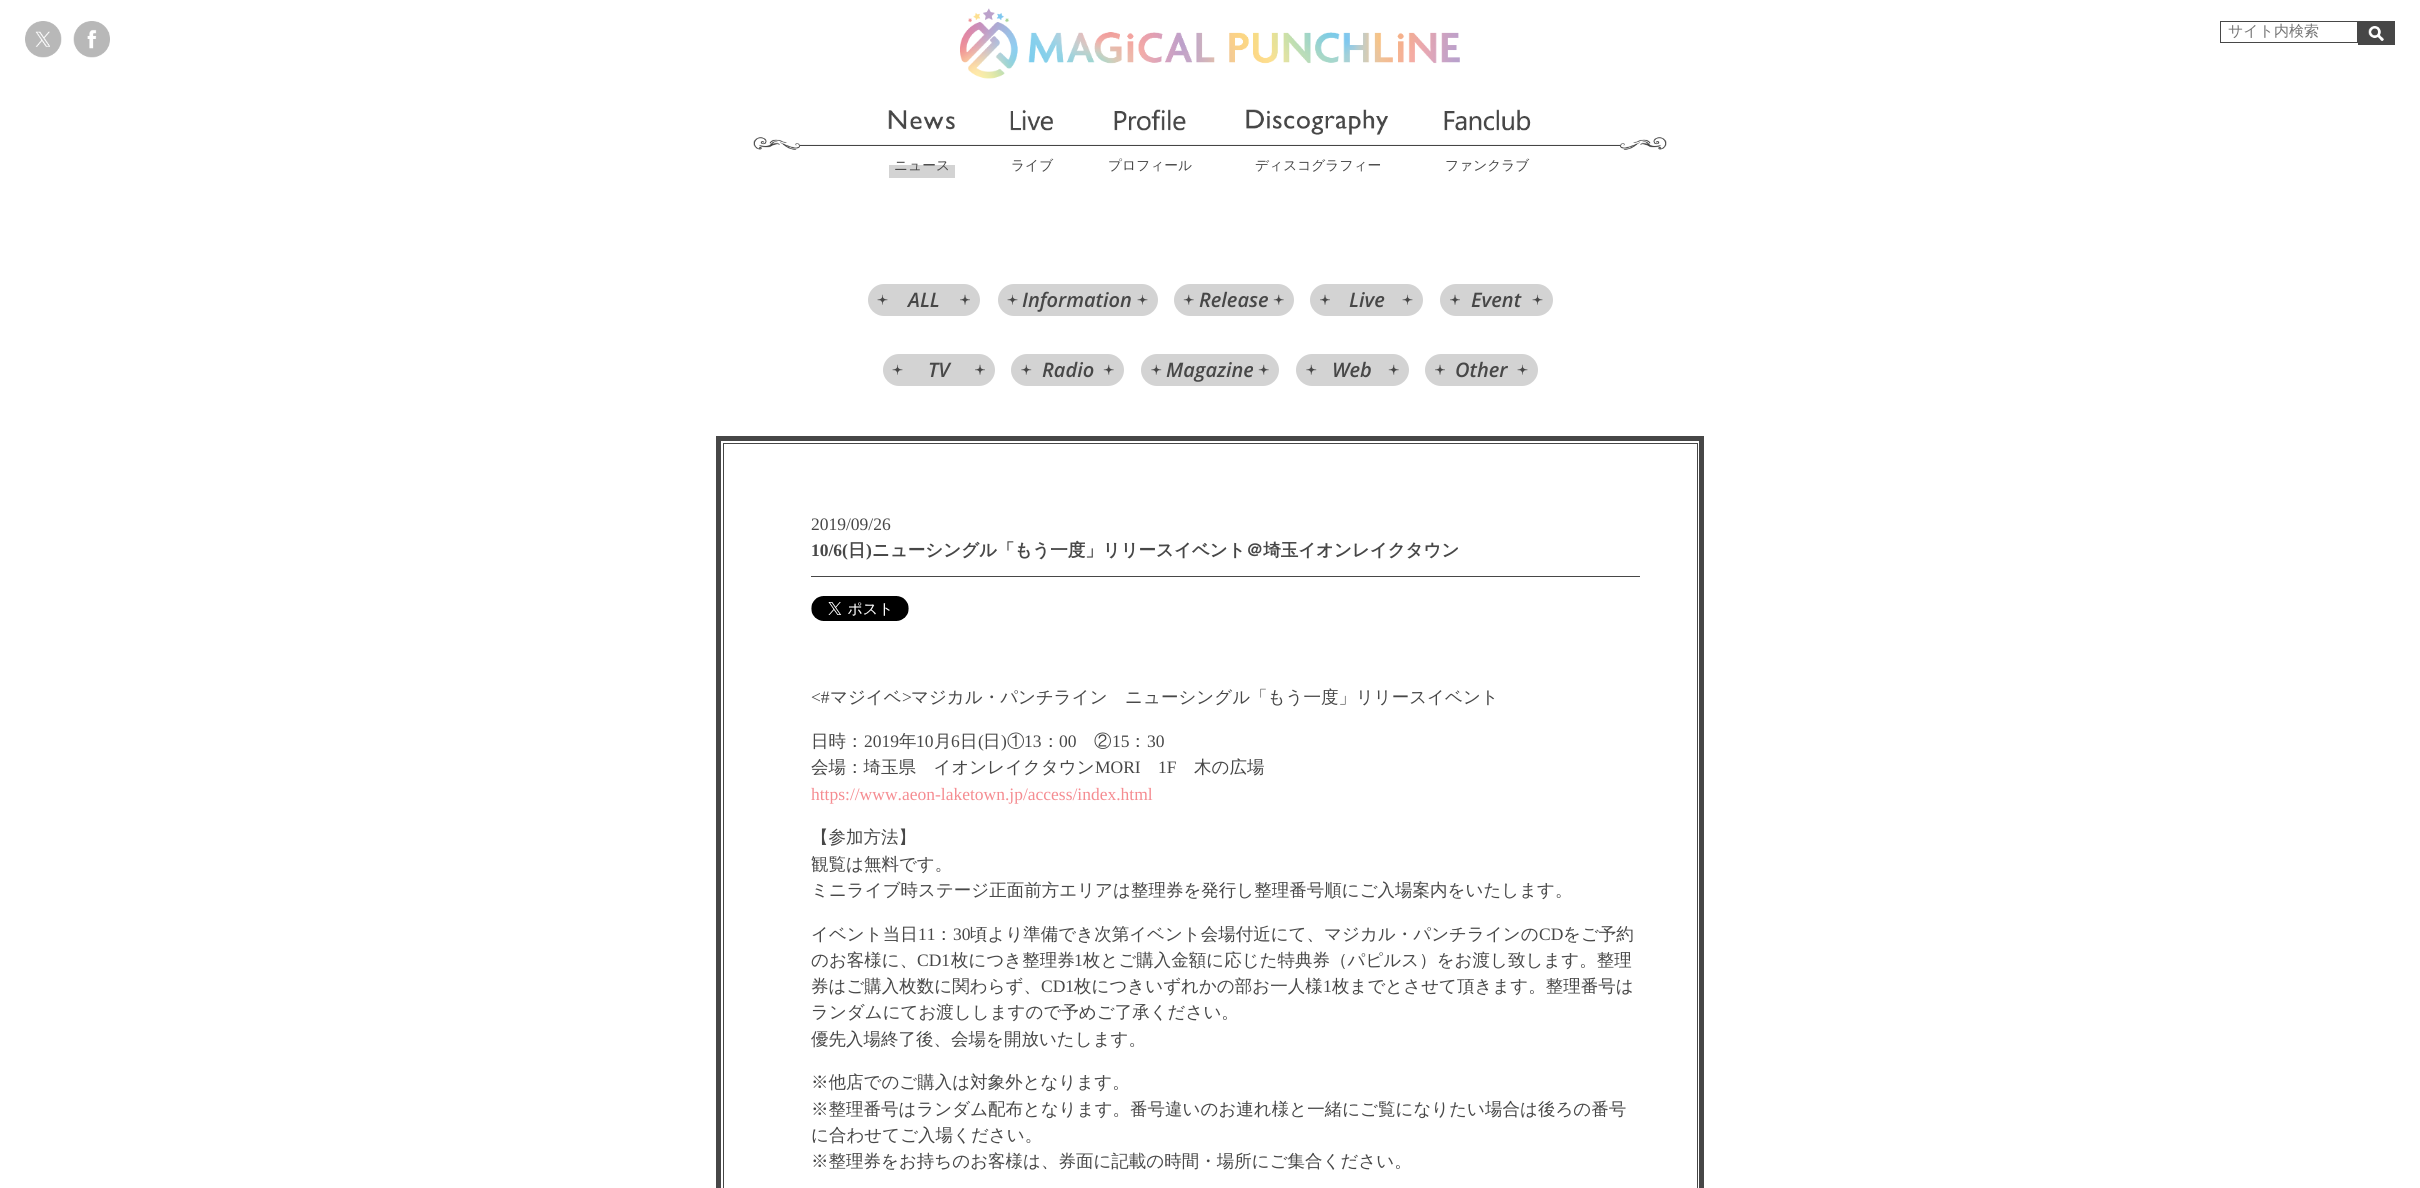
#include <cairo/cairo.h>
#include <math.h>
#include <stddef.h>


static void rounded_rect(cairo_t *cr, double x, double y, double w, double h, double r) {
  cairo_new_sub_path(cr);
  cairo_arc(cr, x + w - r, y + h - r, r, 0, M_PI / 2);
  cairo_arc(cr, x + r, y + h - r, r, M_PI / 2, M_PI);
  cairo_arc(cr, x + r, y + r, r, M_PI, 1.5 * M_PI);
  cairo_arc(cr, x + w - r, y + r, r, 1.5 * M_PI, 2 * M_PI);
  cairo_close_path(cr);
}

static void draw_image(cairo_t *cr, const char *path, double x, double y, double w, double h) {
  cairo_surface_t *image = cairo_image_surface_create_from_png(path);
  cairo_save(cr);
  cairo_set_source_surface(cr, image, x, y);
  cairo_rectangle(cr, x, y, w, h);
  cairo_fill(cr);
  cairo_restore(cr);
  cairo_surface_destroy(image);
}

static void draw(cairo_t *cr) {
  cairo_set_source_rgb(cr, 1, 1, 1);
  cairo_paint(cr);
  draw_image(cr, "images/1.png", 25, 21, 37, 37);
  draw_image(cr, "images/2.png", 73, 21, 37, 37);
  draw_image(cr, "images/3.png", 960, 8, 500, 71);
  cairo_rectangle(cr, 2220.5, 21.5, 137, 21);
  cairo_set_source_rgb(cr, 71 / 255.0, 71 / 255.0, 71 / 255.0);
  cairo_set_line_width(cr, 1);
  cairo_stroke(cr);
  cairo_rectangle(cr, 2358, 21, 37, 24);
  cairo_fill(cr);
  draw_image(cr, "images/4.png", 2368, 26, 16, 15);
  draw_image(cr, "images/5.png", 753, 137, 457, 13);
  draw_image(cr, "images/6.png", 1210, 137, 457, 13);
  draw_image(cr, "images/7.png", 888, 110, 67, 20);
  cairo_set_source_rgb(cr, 211 / 255.0, 211 / 255.0, 211 / 255.0);
  cairo_rectangle(cr, 889, 165, 66, 13);
  cairo_fill(cr);
  draw_image(cr, "images/8.png", 1010, 109, 43, 22);
  draw_image(cr, "images/9.png", 1114, 109, 72, 22);
  draw_image(cr, "images/10.png", 1246, 109, 142, 26);
  draw_image(cr, "images/11.png", 1444, 109, 87, 22);
  rounded_rect(cr, 868, 284, 112, 32, 16);
  cairo_fill(cr);
  draw_image(cr, "images/12.png", 877, 294, 11, 11);
  draw_image(cr, "images/13.png", 960, 294, 10, 11);
  rounded_rect(cr, 998, 284, 160, 32, 16);
  cairo_fill(cr);
  draw_image(cr, "images/12.png", 1007, 294, 11, 11);
  draw_image(cr, "images/12.png", 1137, 294, 11, 11);
  rounded_rect(cr, 1174, 284, 120, 32, 16);
  cairo_fill(cr);
  draw_image(cr, "images/14.png", 1183, 294, 11, 11);
  draw_image(cr, "images/14.png", 1273, 294, 11, 11);
  rounded_rect(cr, 1310, 284, 113, 32, 16);
  cairo_fill(cr);
  draw_image(cr, "images/15.png", 1320, 294, 10, 11);
  draw_image(cr, "images/12.png", 1402, 294, 11, 11);
  rounded_rect(cr, 1440, 284, 113, 32, 16);
  cairo_fill(cr);
  draw_image(cr, "images/15.png", 1450, 294, 10, 11);
  draw_image(cr, "images/12.png", 1532, 294, 11, 11);
  rounded_rect(cr, 883, 354, 112, 32, 16);
  cairo_fill(cr);
  draw_image(cr, "images/12.png", 892, 364, 11, 11);
  draw_image(cr, "images/13.png", 975, 364, 10, 11);
  rounded_rect(cr, 1011, 354, 113, 32, 16);
  cairo_fill(cr);
  draw_image(cr, "images/16.png", 1021, 364, 11, 11);
  draw_image(cr, "images/17.png", 1103, 364, 11, 11);
  rounded_rect(cr, 1141, 354, 138, 32, 16);
  cairo_fill(cr);
  draw_image(cr, "images/16.png", 1151, 364, 11, 11);
  draw_image(cr, "images/14.png", 1258, 364, 11, 11);
  rounded_rect(cr, 1296, 354, 113, 32, 16);
  cairo_fill(cr);
  draw_image(cr, "images/16.png", 1306, 364, 11, 11);
  draw_image(cr, "images/17.png", 1388, 364, 11, 11);
  rounded_rect(cr, 1425, 354, 113, 32, 16);
  cairo_fill(cr);
  draw_image(cr, "images/15.png", 1435, 364, 10, 11);
  draw_image(cr, "images/12.png", 1517, 364, 11, 11);
  cairo_rectangle(cr, 719, 439, 982, 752);
  cairo_set_source_rgb(cr, 71 / 255.0, 71 / 255.0, 71 / 255.0);
  cairo_set_line_width(cr, 6);
  cairo_stroke(cr);
  cairo_rectangle(cr, 721.5, 441.5, 977, 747);
  cairo_set_source_rgb(cr, 1, 1, 1);
  cairo_set_line_width(cr, 1);
  cairo_stroke(cr);
  cairo_rectangle(cr, 723.5, 443.5, 974, 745);
  cairo_set_source_rgb(cr, 71 / 255.0, 71 / 255.0, 71 / 255.0);
  cairo_stroke(cr);
  cairo_rectangle(cr, 811, 576, 829, 1);
  cairo_fill(cr);
  draw_image(cr, "images/18.png", 811, 596, 98, 25);
  cairo_select_font_face(cr, "WenQuanYi Zen Hei Medium", CAIRO_FONT_SLANT_NORMAL, CAIRO_FONT_WEIGHT_NORMAL);
  cairo_set_font_size(cr, 15);
  cairo_set_source_rgb(cr, 117 / 255.0, 117 / 255.0, 117 / 255.0);
  cairo_move_to(cr, 2228, 36);
  cairo_show_text(cr, "サイト内検索");
  cairo_set_font_size(cr, 13.75);
  cairo_set_source_rgb(cr, 71 / 255.0, 71 / 255.0, 71 / 255.0);
  cairo_move_to(cr, 894, 170);
  cairo_show_text(cr, "ニュース");
  cairo_move_to(cr, 1011, 170);
  cairo_show_text(cr, "ライブ");
  cairo_move_to(cr, 1108, 170);
  cairo_show_text(cr, "プロフィール");
  cairo_move_to(cr, 1255, 170);
  cairo_show_text(cr, "ディスコグラフィー");
  cairo_move_to(cr, 1445, 170);
  cairo_show_text(cr, "ファンクラブ");
  cairo_select_font_face(cr, "Open Sans SemiBold", CAIRO_FONT_SLANT_ITALIC, CAIRO_FONT_WEIGHT_NORMAL);
  cairo_set_font_size(cr, 20);
  cairo_move_to(cr, 908, 307);
  cairo_show_text(cr, "ALL");
  cairo_move_to(cr, 1022, 307);
  cairo_show_text(cr, "Information");
  cairo_move_to(cr, 1199, 307);
  cairo_show_text(cr, "Release");
  cairo_move_to(cr, 1349, 307);
  cairo_show_text(cr, "Live");
  cairo_move_to(cr, 1471, 307);
  cairo_show_text(cr, "Event");
  cairo_move_to(cr, 928, 377);
  cairo_show_text(cr, "TV");
  cairo_move_to(cr, 1042, 377);
  cairo_show_text(cr, "Radio");
  cairo_move_to(cr, 1166, 377);
  cairo_show_text(cr, "Magazine");
  cairo_move_to(cr, 1332, 377);
  cairo_show_text(cr, "Web");
  cairo_move_to(cr, 1455, 377);
  cairo_show_text(cr, "Other");
  cairo_select_font_face(cr, "Liberation Serif", CAIRO_FONT_SLANT_NORMAL, CAIRO_FONT_WEIGHT_NORMAL);
  cairo_set_font_size(cr, 17.5);
  cairo_move_to(cr, 811, 530);
  cairo_show_text(cr, "2019/09/26");
  cairo_select_font_face(cr, "Liberation Serif", CAIRO_FONT_SLANT_NORMAL, CAIRO_FONT_WEIGHT_BOLD);
  cairo_move_to(cr, 811, 556);
  cairo_show_text(cr, "10/6(");
  cairo_select_font_face(cr, "WenQuanYi Zen Hei", CAIRO_FONT_SLANT_NORMAL, CAIRO_FONT_WEIGHT_BOLD);
  cairo_move_to(cr, 848, 556);
  cairo_show_text(cr, "日");
  cairo_select_font_face(cr, "Liberation Serif", CAIRO_FONT_SLANT_NORMAL, CAIRO_FONT_WEIGHT_BOLD);
  cairo_move_to(cr, 866, 556);
  cairo_show_text(cr, ")");
  cairo_select_font_face(cr, "WenQuanYi Zen Hei", CAIRO_FONT_SLANT_NORMAL, CAIRO_FONT_WEIGHT_BOLD);
  cairo_move_to(cr, 872, 556);
  cairo_show_text(cr, "ニューシングル「もう一度」リリースイベント＠埼玉イオンレイクタウン");
  cairo_select_font_face(cr, "Liberation Serif", CAIRO_FONT_SLANT_NORMAL, CAIRO_FONT_WEIGHT_NORMAL);
  cairo_move_to(cr, 811, 703);
  cairo_show_text(cr, "<#");
  cairo_select_font_face(cr, "WenQuanYi Zen Hei Medium", CAIRO_FONT_SLANT_NORMAL, CAIRO_FONT_WEIGHT_NORMAL);
  cairo_move_to(cr, 830, 703);
  cairo_show_text(cr, "マジイベ");
  cairo_select_font_face(cr, "Liberation Serif", CAIRO_FONT_SLANT_NORMAL, CAIRO_FONT_WEIGHT_NORMAL);
  cairo_move_to(cr, 902, 703);
  cairo_show_text(cr, ">");
  cairo_select_font_face(cr, "WenQuanYi Zen Hei Medium", CAIRO_FONT_SLANT_NORMAL, CAIRO_FONT_WEIGHT_NORMAL);
  cairo_move_to(cr, 911, 703);
  cairo_show_text(cr, "マジカル・パンチライン　ニューシングル「もう一度」リリースイベント");
  cairo_move_to(cr, 811, 747);
  cairo_show_text(cr, "日時：");
  cairo_select_font_face(cr, "Liberation Serif", CAIRO_FONT_SLANT_NORMAL, CAIRO_FONT_WEIGHT_NORMAL);
  cairo_move_to(cr, 864, 747);
  cairo_show_text(cr, "2019");
  cairo_select_font_face(cr, "WenQuanYi Zen Hei Medium", CAIRO_FONT_SLANT_NORMAL, CAIRO_FONT_WEIGHT_NORMAL);
  cairo_move_to(cr, 899, 747);
  cairo_show_text(cr, "年");
  cairo_select_font_face(cr, "Liberation Serif", CAIRO_FONT_SLANT_NORMAL, CAIRO_FONT_WEIGHT_NORMAL);
  cairo_move_to(cr, 916, 747);
  cairo_show_text(cr, "10");
  cairo_select_font_face(cr, "WenQuanYi Zen Hei Medium", CAIRO_FONT_SLANT_NORMAL, CAIRO_FONT_WEIGHT_NORMAL);
  cairo_move_to(cr, 934, 747);
  cairo_show_text(cr, "月");
  cairo_select_font_face(cr, "Liberation Serif", CAIRO_FONT_SLANT_NORMAL, CAIRO_FONT_WEIGHT_NORMAL);
  cairo_move_to(cr, 951, 747);
  cairo_show_text(cr, "6");
  cairo_select_font_face(cr, "WenQuanYi Zen Hei Medium", CAIRO_FONT_SLANT_NORMAL, CAIRO_FONT_WEIGHT_NORMAL);
  cairo_move_to(cr, 960, 747);
  cairo_show_text(cr, "日");
  cairo_select_font_face(cr, "Liberation Serif", CAIRO_FONT_SLANT_NORMAL, CAIRO_FONT_WEIGHT_NORMAL);
  cairo_move_to(cr, 978, 747);
  cairo_show_text(cr, "(");
  cairo_select_font_face(cr, "WenQuanYi Zen Hei Medium", CAIRO_FONT_SLANT_NORMAL, CAIRO_FONT_WEIGHT_NORMAL);
  cairo_move_to(cr, 983, 747);
  cairo_show_text(cr, "日");
  cairo_select_font_face(cr, "Liberation Serif", CAIRO_FONT_SLANT_NORMAL, CAIRO_FONT_WEIGHT_NORMAL);
  cairo_move_to(cr, 1001, 747);
  cairo_show_text(cr, ")");
  cairo_select_font_face(cr, "WenQuanYi Zen Hei Medium", CAIRO_FONT_SLANT_NORMAL, CAIRO_FONT_WEIGHT_NORMAL);
  cairo_move_to(cr, 1007, 747);
  cairo_show_text(cr, "①");
  cairo_select_font_face(cr, "Liberation Serif", CAIRO_FONT_SLANT_NORMAL, CAIRO_FONT_WEIGHT_NORMAL);
  cairo_move_to(cr, 1024, 747);
  cairo_show_text(cr, "13");
  cairo_select_font_face(cr, "WenQuanYi Zen Hei Medium", CAIRO_FONT_SLANT_NORMAL, CAIRO_FONT_WEIGHT_NORMAL);
  cairo_move_to(cr, 1042, 747);
  cairo_show_text(cr, "：");
  cairo_select_font_face(cr, "Liberation Serif", CAIRO_FONT_SLANT_NORMAL, CAIRO_FONT_WEIGHT_NORMAL);
  cairo_move_to(cr, 1059, 747);
  cairo_show_text(cr, "00");
  cairo_select_font_face(cr, "WenQuanYi Zen Hei Medium", CAIRO_FONT_SLANT_NORMAL, CAIRO_FONT_WEIGHT_NORMAL);
  cairo_move_to(cr, 1094, 747);
  cairo_show_text(cr, "②");
  cairo_select_font_face(cr, "Liberation Serif", CAIRO_FONT_SLANT_NORMAL, CAIRO_FONT_WEIGHT_NORMAL);
  cairo_move_to(cr, 1112, 747);
  cairo_show_text(cr, "15");
  cairo_select_font_face(cr, "WenQuanYi Zen Hei Medium", CAIRO_FONT_SLANT_NORMAL, CAIRO_FONT_WEIGHT_NORMAL);
  cairo_move_to(cr, 1129, 747);
  cairo_show_text(cr, "：");
  cairo_select_font_face(cr, "Liberation Serif", CAIRO_FONT_SLANT_NORMAL, CAIRO_FONT_WEIGHT_NORMAL);
  cairo_move_to(cr, 1147, 747);
  cairo_show_text(cr, "30");
  cairo_select_font_face(cr, "WenQuanYi Zen Hei Medium", CAIRO_FONT_SLANT_NORMAL, CAIRO_FONT_WEIGHT_NORMAL);
  cairo_move_to(cr, 811, 773);
  cairo_show_text(cr, "会場：埼玉県　イオンレイクタウン");
  cairo_select_font_face(cr, "Liberation Serif", CAIRO_FONT_SLANT_NORMAL, CAIRO_FONT_WEIGHT_NORMAL);
  cairo_move_to(cr, 1095, 773);
  cairo_show_text(cr, "MORI");
  cairo_move_to(cr, 1158, 773);
  cairo_show_text(cr, "1F");
  cairo_select_font_face(cr, "WenQuanYi Zen Hei Medium", CAIRO_FONT_SLANT_NORMAL, CAIRO_FONT_WEIGHT_NORMAL);
  cairo_move_to(cr, 1194, 773);
  cairo_show_text(cr, "木の広場");
  cairo_select_font_face(cr, "Liberation Serif", CAIRO_FONT_SLANT_NORMAL, CAIRO_FONT_WEIGHT_NORMAL);
  cairo_set_source_rgb(cr, 245 / 255.0, 140 / 255.0, 145 / 255.0);
  cairo_move_to(cr, 811, 800);
  cairo_show_text(cr, "https://www.aeon-laketown.jp/access/index.html");
  cairo_select_font_face(cr, "WenQuanYi Zen Hei Medium", CAIRO_FONT_SLANT_NORMAL, CAIRO_FONT_WEIGHT_NORMAL);
  cairo_set_source_rgb(cr, 71 / 255.0, 71 / 255.0, 71 / 255.0);
  cairo_move_to(cr, 811, 843);
  cairo_show_text(cr, "【参加方法】");
  cairo_move_to(cr, 811, 870);
  cairo_show_text(cr, "観覧は無料です。");
  cairo_move_to(cr, 811, 896);
  cairo_show_text(cr, "ミニライブ時ステージ正面前方エリアは整理券を発行し整理番号順にご入場案内をいたします。");
  cairo_move_to(cr, 811, 940);
  cairo_show_text(cr, "イベント当日");
  cairo_select_font_face(cr, "Liberation Serif", CAIRO_FONT_SLANT_NORMAL, CAIRO_FONT_WEIGHT_NORMAL);
  cairo_move_to(cr, 918, 940);
  cairo_show_text(cr, "11");
  cairo_select_font_face(cr, "WenQuanYi Zen Hei Medium", CAIRO_FONT_SLANT_NORMAL, CAIRO_FONT_WEIGHT_NORMAL);
  cairo_move_to(cr, 935, 940);
  cairo_show_text(cr, "：");
  cairo_select_font_face(cr, "Liberation Serif", CAIRO_FONT_SLANT_NORMAL, CAIRO_FONT_WEIGHT_NORMAL);
  cairo_move_to(cr, 953, 940);
  cairo_show_text(cr, "30");
  cairo_select_font_face(cr, "WenQuanYi Zen Hei Medium", CAIRO_FONT_SLANT_NORMAL, CAIRO_FONT_WEIGHT_NORMAL);
  cairo_move_to(cr, 970, 940);
  cairo_show_text(cr, "頃より準備でき次第イベント会場付近にて、マジカル・パンチラインの");
  cairo_select_font_face(cr, "Liberation Serif", CAIRO_FONT_SLANT_NORMAL, CAIRO_FONT_WEIGHT_NORMAL);
  cairo_move_to(cr, 1539, 940);
  cairo_show_text(cr, "CD");
  cairo_select_font_face(cr, "WenQuanYi Zen Hei Medium", CAIRO_FONT_SLANT_NORMAL, CAIRO_FONT_WEIGHT_NORMAL);
  cairo_move_to(cr, 1563, 940);
  cairo_show_text(cr, "をご予約");
  cairo_move_to(cr, 811, 966);
  cairo_show_text(cr, "のお客様に、");
  cairo_select_font_face(cr, "Liberation Serif", CAIRO_FONT_SLANT_NORMAL, CAIRO_FONT_WEIGHT_NORMAL);
  cairo_move_to(cr, 917, 966);
  cairo_show_text(cr, "CD1");
  cairo_select_font_face(cr, "WenQuanYi Zen Hei Medium", CAIRO_FONT_SLANT_NORMAL, CAIRO_FONT_WEIGHT_NORMAL);
  cairo_move_to(cr, 951, 966);
  cairo_show_text(cr, "枚につき整理券");
  cairo_select_font_face(cr, "Liberation Serif", CAIRO_FONT_SLANT_NORMAL, CAIRO_FONT_WEIGHT_NORMAL);
  cairo_move_to(cr, 1074, 966);
  cairo_show_text(cr, "1");
  cairo_select_font_face(cr, "WenQuanYi Zen Hei Medium", CAIRO_FONT_SLANT_NORMAL, CAIRO_FONT_WEIGHT_NORMAL);
  cairo_move_to(cr, 1083, 966);
  cairo_show_text(cr, "枚とご購入金額に応じた特典券（パピルス）をお渡し致します。整理");
  cairo_move_to(cr, 811, 992);
  cairo_show_text(cr, "券はご購入枚数に関わらず、");
  cairo_select_font_face(cr, "Liberation Serif", CAIRO_FONT_SLANT_NORMAL, CAIRO_FONT_WEIGHT_NORMAL);
  cairo_move_to(cr, 1041, 992);
  cairo_show_text(cr, "CD1");
  cairo_select_font_face(cr, "WenQuanYi Zen Hei Medium", CAIRO_FONT_SLANT_NORMAL, CAIRO_FONT_WEIGHT_NORMAL);
  cairo_move_to(cr, 1074, 992);
  cairo_show_text(cr, "枚につきいずれかの部お一人様");
  cairo_select_font_face(cr, "Liberation Serif", CAIRO_FONT_SLANT_NORMAL, CAIRO_FONT_WEIGHT_NORMAL);
  cairo_move_to(cr, 1323, 992);
  cairo_show_text(cr, "1");
  cairo_select_font_face(cr, "WenQuanYi Zen Hei Medium", CAIRO_FONT_SLANT_NORMAL, CAIRO_FONT_WEIGHT_NORMAL);
  cairo_move_to(cr, 1332, 992);
  cairo_show_text(cr, "枚までとさせて頂きます。整理番号は");
  cairo_move_to(cr, 811, 1018);
  cairo_show_text(cr, "ランダムにてお渡ししますので予めご了承ください。");
  cairo_move_to(cr, 811, 1045);
  cairo_show_text(cr, "優先入場終了後、会場を開放いたします。");
  cairo_move_to(cr, 811, 1088);
  cairo_show_text(cr, "※他店でのご購入は対象外となります。");
  cairo_move_to(cr, 811, 1115);
  cairo_show_text(cr, "※整理番号はランダム配布となります。番号違いのお連れ様と一緒にご覧になりたい場合は後ろの番号");
  cairo_move_to(cr, 811, 1141);
  cairo_show_text(cr, "に合わせてご入場ください。");
  cairo_move_to(cr, 811, 1167);
  cairo_show_text(cr, "※整理券をお持ちのお客様は、券面に記載の時間・場所にご集合ください。");
}

int main(void) {
  cairo_surface_t *surface = cairo_image_surface_create(CAIRO_FORMAT_RGB24, 2420, 1188);
  cairo_t *cr = cairo_create(surface);
  cairo_font_options_t *options = cairo_font_options_create();
  cairo_font_options_set_hint_metrics(options, CAIRO_HINT_METRICS_OFF);
  cairo_font_options_set_hint_style(options, CAIRO_HINT_STYLE_NONE);
  cairo_set_font_options(cr, options);
  cairo_set_miter_limit(cr, 4);
  draw(cr);
  cairo_surface_write_to_png(surface, "out.png");
  cairo_font_options_destroy(options);
  cairo_destroy(cr);
  cairo_surface_destroy(surface);
  return 0;
}
